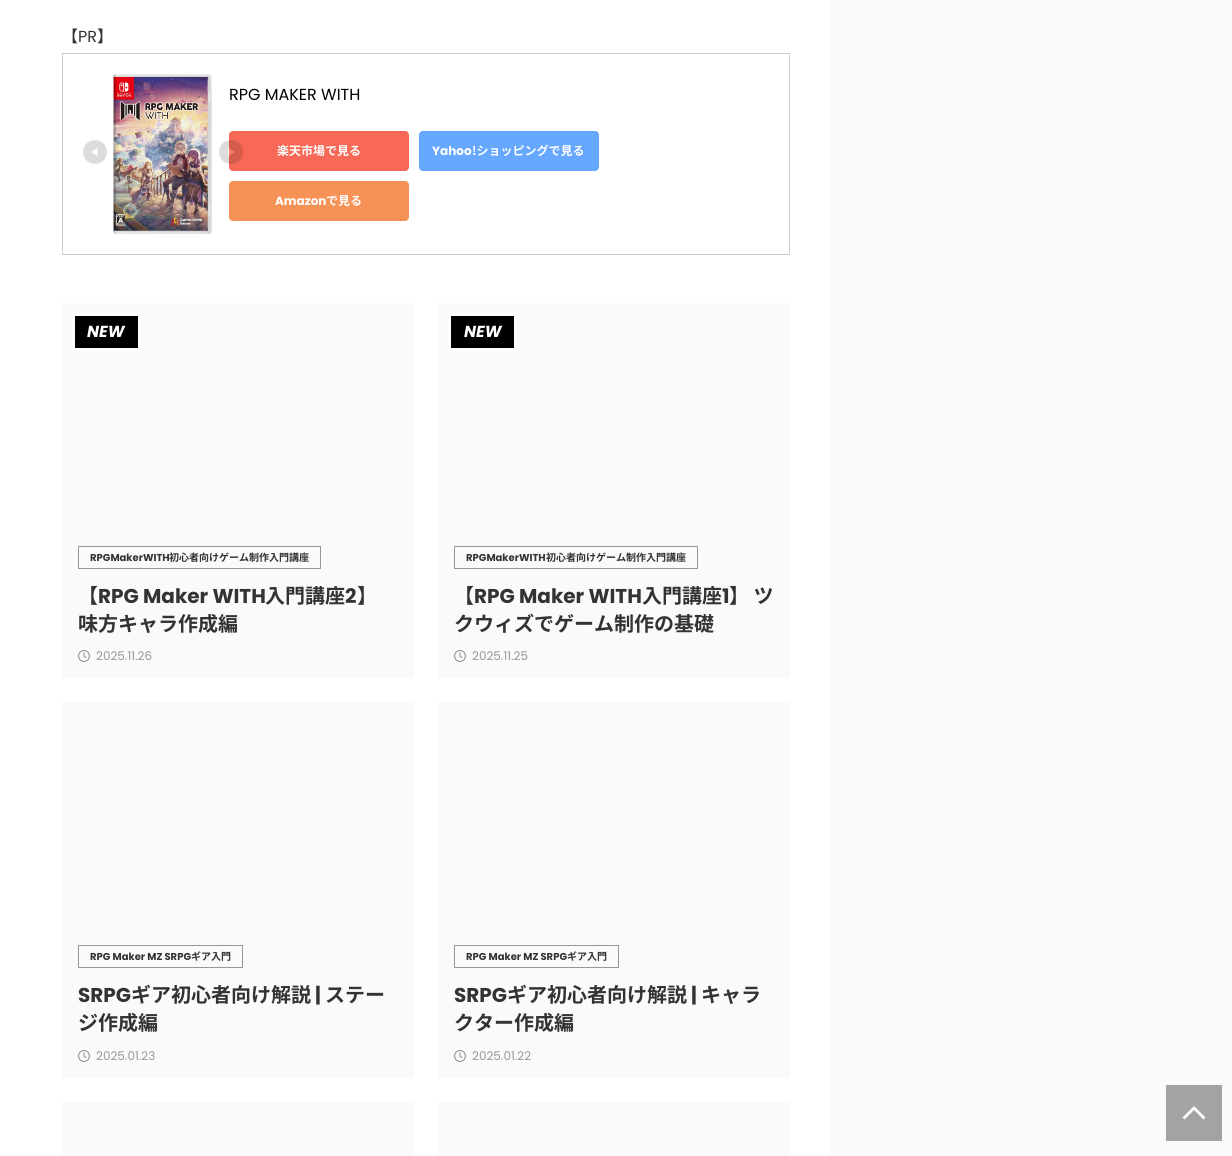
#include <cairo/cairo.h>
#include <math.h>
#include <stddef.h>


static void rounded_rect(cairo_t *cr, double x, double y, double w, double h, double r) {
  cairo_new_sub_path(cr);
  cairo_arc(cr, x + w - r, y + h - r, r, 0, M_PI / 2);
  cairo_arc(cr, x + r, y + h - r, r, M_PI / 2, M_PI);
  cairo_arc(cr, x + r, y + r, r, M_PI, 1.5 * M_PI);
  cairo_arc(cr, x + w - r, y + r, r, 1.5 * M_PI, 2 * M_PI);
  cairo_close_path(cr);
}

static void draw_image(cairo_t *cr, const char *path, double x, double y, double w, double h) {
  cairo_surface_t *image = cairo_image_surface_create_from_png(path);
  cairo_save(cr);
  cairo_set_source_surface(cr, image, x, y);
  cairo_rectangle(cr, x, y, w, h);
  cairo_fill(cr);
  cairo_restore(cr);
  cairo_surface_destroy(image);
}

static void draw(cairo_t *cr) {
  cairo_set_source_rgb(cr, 1, 1, 1);
  cairo_paint(cr);
  cairo_rectangle(cr, 62.5, 53.5, 727, 201);
  cairo_set_source_rgb(cr, 204 / 255.0, 204 / 255.0, 204 / 255.0);
  cairo_set_line_width(cr, 1);
  cairo_stroke(cr);
  draw_image(cr, "images/1.png", 83, 140, 24, 24);
  draw_image(cr, "images/2.png", 113, 74, 99, 160);
  cairo_set_source_rgb(cr, 247 / 255.0, 105 / 255.0, 86 / 255.0);
  rounded_rect(cr, 229, 131, 180, 40, 4);
  cairo_fill(cr);
  draw_image(cr, "images/3.png", 219, 140, 24, 24);
  cairo_set_source_rgb(cr, 102 / 255.0, 167 / 255.0, 1);
  rounded_rect(cr, 419, 131, 180, 40, 4);
  cairo_fill(cr);
  cairo_set_source_rgb(cr, 247 / 255.0, 146 / 255.0, 86 / 255.0);
  rounded_rect(cr, 229, 181, 180, 40, 4);
  cairo_fill(cr);
  cairo_set_source_rgb(cr, 250 / 255.0, 250 / 255.0, 250 / 255.0);
  cairo_rectangle(cr, 830, 0, 402, 1156);
  cairo_fill(cr);
  cairo_rectangle(cr, 62, 303, 352, 375);
  cairo_fill(cr);
  cairo_set_source_rgb(cr, 0, 0, 0);
  cairo_rectangle(cr, 73.5, 314.5, 66, 35);
  cairo_fill_preserve(cr);
  cairo_set_source_rgb(cr, 1, 1, 1);
  cairo_set_line_width(cr, 3);
  cairo_stroke(cr);
  cairo_rectangle(cr, 78.5, 546.5, 242, 22);
  cairo_set_source_rgb(cr, 151 / 255.0, 151 / 255.0, 151 / 255.0);
  cairo_set_line_width(cr, 1);
  cairo_stroke(cr);
  draw_image(cr, "images/4.png", 78, 650, 12, 12);
  cairo_set_source_rgb(cr, 250 / 255.0, 250 / 255.0, 250 / 255.0);
  cairo_rectangle(cr, 438, 303, 352, 375);
  cairo_fill(cr);
  cairo_set_source_rgb(cr, 0, 0, 0);
  cairo_rectangle(cr, 449.5, 314.5, 66, 35);
  cairo_fill_preserve(cr);
  cairo_set_source_rgb(cr, 1, 1, 1);
  cairo_set_line_width(cr, 3);
  cairo_stroke(cr);
  cairo_rectangle(cr, 454.5, 546.5, 243, 22);
  cairo_set_source_rgb(cr, 151 / 255.0, 151 / 255.0, 151 / 255.0);
  cairo_set_line_width(cr, 1);
  cairo_stroke(cr);
  draw_image(cr, "images/4.png", 454, 650, 12, 12);
  cairo_set_source_rgb(cr, 250 / 255.0, 250 / 255.0, 250 / 255.0);
  cairo_rectangle(cr, 62, 702, 352, 376);
  cairo_fill(cr);
  cairo_rectangle(cr, 78.5, 945.5, 164, 22);
  cairo_set_source_rgb(cr, 151 / 255.0, 151 / 255.0, 151 / 255.0);
  cairo_stroke(cr);
  draw_image(cr, "images/4.png", 78, 1050, 12, 12);
  cairo_set_source_rgb(cr, 250 / 255.0, 250 / 255.0, 250 / 255.0);
  cairo_rectangle(cr, 438, 702, 352, 376);
  cairo_fill(cr);
  cairo_rectangle(cr, 454.5, 945.5, 164, 22);
  cairo_set_source_rgb(cr, 151 / 255.0, 151 / 255.0, 151 / 255.0);
  cairo_stroke(cr);
  draw_image(cr, "images/4.png", 454, 1050, 12, 12);
  cairo_set_source_rgb(cr, 250 / 255.0, 250 / 255.0, 250 / 255.0);
  cairo_rectangle(cr, 62, 1102, 352, 54);
  cairo_fill(cr);
  cairo_rectangle(cr, 438, 1102, 352, 54);
  cairo_fill(cr);
  cairo_set_source_rgb(cr, 163 / 255.0, 163 / 255.0, 163 / 255.0);
  cairo_rectangle(cr, 1166, 1085, 56, 56);
  cairo_fill(cr);
  cairo_set_source_rgb(cr, 252 / 255.0, 252 / 255.0, 252 / 255.0);
  cairo_new_path(cr);
  cairo_move_to(cr, 1194, 1106);
  cairo_line_to(cr, 1182.5, 1117.5);
  cairo_line_to(cr, 1184.5, 1119.5);
  cairo_line_to(cr, 1194, 1110);
  cairo_line_to(cr, 1203.5, 1119.5);
  cairo_line_to(cr, 1205.5, 1117.5);
  cairo_line_to(cr, 1196, 1108);
  cairo_close_path(cr);
  cairo_fill(cr);
  cairo_select_font_face(cr, "Noto Sans JP", CAIRO_FONT_SLANT_NORMAL, CAIRO_FONT_WEIGHT_NORMAL);
  cairo_set_font_size(cr, 16);
  cairo_set_source_rgb(cr, 51 / 255.0, 51 / 255.0, 51 / 255.0);
  cairo_move_to(cr, 62, 42);
  cairo_show_text(cr, "【");
  cairo_select_font_face(cr, "Poppins", CAIRO_FONT_SLANT_NORMAL, CAIRO_FONT_WEIGHT_NORMAL);
  cairo_move_to(cr, 78, 42);
  cairo_show_text(cr, "PR");
  cairo_select_font_face(cr, "Noto Sans JP", CAIRO_FONT_SLANT_NORMAL, CAIRO_FONT_WEIGHT_NORMAL);
  cairo_move_to(cr, 97, 42);
  cairo_show_text(cr, "】");
  cairo_select_font_face(cr, "Poppins", CAIRO_FONT_SLANT_NORMAL, CAIRO_FONT_WEIGHT_NORMAL);
  cairo_set_source_rgb(cr, 0, 0, 0);
  cairo_move_to(cr, 229, 100);
  cairo_show_text(cr, "RPG MAKER WITH");
  cairo_select_font_face(cr, "Noto Sans JP", CAIRO_FONT_SLANT_NORMAL, CAIRO_FONT_WEIGHT_BOLD);
  cairo_set_font_size(cr, 12);
  cairo_set_source_rgb(cr, 1, 1, 1);
  cairo_move_to(cr, 277, 155);
  cairo_show_text(cr, "楽天市場で見る");
  cairo_select_font_face(cr, "Poppins", CAIRO_FONT_SLANT_NORMAL, CAIRO_FONT_WEIGHT_BOLD);
  cairo_move_to(cr, 432, 155);
  cairo_show_text(cr, "Yahoo");
  cairo_select_font_face(cr, "Noto Sans JP", CAIRO_FONT_SLANT_NORMAL, CAIRO_FONT_WEIGHT_BOLD);
  cairo_move_to(cr, 472, 155);
  cairo_show_text(cr, "!ショッピングで見る");
  cairo_select_font_face(cr, "Poppins", CAIRO_FONT_SLANT_NORMAL, CAIRO_FONT_WEIGHT_BOLD);
  cairo_move_to(cr, 275, 205);
  cairo_show_text(cr, "Amazon");
  cairo_select_font_face(cr, "Noto Sans JP", CAIRO_FONT_SLANT_NORMAL, CAIRO_FONT_WEIGHT_BOLD);
  cairo_move_to(cr, 326, 205);
  cairo_show_text(cr, "で見る");
  cairo_select_font_face(cr, "Poppins", CAIRO_FONT_SLANT_ITALIC, CAIRO_FONT_WEIGHT_BOLD);
  cairo_set_font_size(cr, 16);
  cairo_move_to(cr, 87, 337);
  cairo_show_text(cr, "NEW");
  cairo_select_font_face(cr, "Poppins", CAIRO_FONT_SLANT_NORMAL, CAIRO_FONT_WEIGHT_BOLD);
  cairo_set_font_size(cr, 10);
  cairo_set_source_rgb(cr, 51 / 255.0, 51 / 255.0, 51 / 255.0);
  cairo_move_to(cr, 90, 561);
  cairo_show_text(cr, "RPGMakerWITH");
  cairo_select_font_face(cr, "Noto Sans JP", CAIRO_FONT_SLANT_NORMAL, CAIRO_FONT_WEIGHT_BOLD);
  cairo_move_to(cr, 169, 561);
  cairo_show_text(cr, "初心者向けゲーム制作入門講座");
  cairo_select_font_face(cr, "Poppins", CAIRO_FONT_SLANT_NORMAL, CAIRO_FONT_WEIGHT_NORMAL);
  cairo_set_font_size(cr, 12);
  cairo_set_source_rgb(cr, 151 / 255.0, 151 / 255.0, 151 / 255.0);
  cairo_move_to(cr, 96, 660);
  cairo_show_text(cr, "2025.11.26");
  cairo_select_font_face(cr, "Noto Sans JP", CAIRO_FONT_SLANT_NORMAL, CAIRO_FONT_WEIGHT_BOLD);
  cairo_set_font_size(cr, 20);
  cairo_set_source_rgb(cr, 51 / 255.0, 51 / 255.0, 51 / 255.0);
  cairo_move_to(cr, 78, 603);
  cairo_show_text(cr, "【");
  cairo_select_font_face(cr, "Poppins", CAIRO_FONT_SLANT_NORMAL, CAIRO_FONT_WEIGHT_BOLD);
  cairo_move_to(cr, 98, 603);
  cairo_show_text(cr, "RPG Maker WITH");
  cairo_select_font_face(cr, "Noto Sans JP", CAIRO_FONT_SLANT_NORMAL, CAIRO_FONT_WEIGHT_BOLD);
  cairo_move_to(cr, 265, 603);
  cairo_show_text(cr, "入門講座");
  cairo_select_font_face(cr, "Poppins", CAIRO_FONT_SLANT_NORMAL, CAIRO_FONT_WEIGHT_BOLD);
  cairo_move_to(cr, 345, 603);
  cairo_show_text(cr, "2");
  cairo_select_font_face(cr, "Noto Sans JP", CAIRO_FONT_SLANT_NORMAL, CAIRO_FONT_WEIGHT_BOLD);
  cairo_move_to(cr, 357, 603);
  cairo_show_text(cr, "】");
  cairo_move_to(cr, 78, 631);
  cairo_show_text(cr, "味方キャラ作成編");
  cairo_select_font_face(cr, "Poppins", CAIRO_FONT_SLANT_ITALIC, CAIRO_FONT_WEIGHT_BOLD);
  cairo_set_font_size(cr, 16);
  cairo_set_source_rgb(cr, 1, 1, 1);
  cairo_move_to(cr, 464, 337);
  cairo_show_text(cr, "NEW");
  cairo_select_font_face(cr, "Poppins", CAIRO_FONT_SLANT_NORMAL, CAIRO_FONT_WEIGHT_BOLD);
  cairo_set_font_size(cr, 10);
  cairo_set_source_rgb(cr, 51 / 255.0, 51 / 255.0, 51 / 255.0);
  cairo_move_to(cr, 466, 561);
  cairo_show_text(cr, "RPGMakerWITH");
  cairo_select_font_face(cr, "Noto Sans JP", CAIRO_FONT_SLANT_NORMAL, CAIRO_FONT_WEIGHT_BOLD);
  cairo_move_to(cr, 546, 561);
  cairo_show_text(cr, "初心者向けゲーム制作入門講座");
  cairo_select_font_face(cr, "Poppins", CAIRO_FONT_SLANT_NORMAL, CAIRO_FONT_WEIGHT_NORMAL);
  cairo_set_font_size(cr, 12);
  cairo_set_source_rgb(cr, 151 / 255.0, 151 / 255.0, 151 / 255.0);
  cairo_move_to(cr, 472, 660);
  cairo_show_text(cr, "2025.11.25");
  cairo_select_font_face(cr, "Noto Sans JP", CAIRO_FONT_SLANT_NORMAL, CAIRO_FONT_WEIGHT_BOLD);
  cairo_set_font_size(cr, 20);
  cairo_set_source_rgb(cr, 51 / 255.0, 51 / 255.0, 51 / 255.0);
  cairo_move_to(cr, 454, 603);
  cairo_show_text(cr, "【");
  cairo_select_font_face(cr, "Poppins", CAIRO_FONT_SLANT_NORMAL, CAIRO_FONT_WEIGHT_BOLD);
  cairo_move_to(cr, 474, 603);
  cairo_show_text(cr, "RPG Maker WITH");
  cairo_select_font_face(cr, "Noto Sans JP", CAIRO_FONT_SLANT_NORMAL, CAIRO_FONT_WEIGHT_BOLD);
  cairo_move_to(cr, 642, 603);
  cairo_show_text(cr, "入門講座");
  cairo_select_font_face(cr, "Poppins", CAIRO_FONT_SLANT_NORMAL, CAIRO_FONT_WEIGHT_BOLD);
  cairo_move_to(cr, 722, 603);
  cairo_show_text(cr, "1");
  cairo_select_font_face(cr, "Noto Sans JP", CAIRO_FONT_SLANT_NORMAL, CAIRO_FONT_WEIGHT_BOLD);
  cairo_move_to(cr, 729, 603);
  cairo_show_text(cr, "】 ツ");
  cairo_move_to(cr, 454, 631);
  cairo_show_text(cr, "クウィズでゲーム制作の基礎");
  cairo_select_font_face(cr, "Poppins", CAIRO_FONT_SLANT_NORMAL, CAIRO_FONT_WEIGHT_BOLD);
  cairo_set_font_size(cr, 10);
  cairo_move_to(cr, 90, 960);
  cairo_show_text(cr, "RPG Maker MZ SRPG");
  cairo_select_font_face(cr, "Noto Sans JP", CAIRO_FONT_SLANT_NORMAL, CAIRO_FONT_WEIGHT_BOLD);
  cairo_move_to(cr, 191, 960);
  cairo_show_text(cr, "ギア入門");
  cairo_select_font_face(cr, "Poppins", CAIRO_FONT_SLANT_NORMAL, CAIRO_FONT_WEIGHT_NORMAL);
  cairo_set_font_size(cr, 12);
  cairo_set_source_rgb(cr, 151 / 255.0, 151 / 255.0, 151 / 255.0);
  cairo_move_to(cr, 96, 1060);
  cairo_show_text(cr, "2025.01.23");
  cairo_select_font_face(cr, "Poppins", CAIRO_FONT_SLANT_NORMAL, CAIRO_FONT_WEIGHT_BOLD);
  cairo_set_font_size(cr, 20);
  cairo_set_source_rgb(cr, 51 / 255.0, 51 / 255.0, 51 / 255.0);
  cairo_move_to(cr, 78, 1002);
  cairo_show_text(cr, "SRPG");
  cairo_select_font_face(cr, "Noto Sans JP", CAIRO_FONT_SLANT_NORMAL, CAIRO_FONT_WEIGHT_BOLD);
  cairo_move_to(cr, 131, 1002);
  cairo_show_text(cr, "ギア初心者向け解説");
  cairo_select_font_face(cr, "Poppins", CAIRO_FONT_SLANT_NORMAL, CAIRO_FONT_WEIGHT_BOLD);
  cairo_move_to(cr, 315, 1002);
  cairo_show_text(cr, "|");
  cairo_select_font_face(cr, "Noto Sans JP", CAIRO_FONT_SLANT_NORMAL, CAIRO_FONT_WEIGHT_BOLD);
  cairo_move_to(cr, 325, 1002);
  cairo_show_text(cr, "ステー");
  cairo_move_to(cr, 78, 1030);
  cairo_show_text(cr, "ジ作成編");
  cairo_select_font_face(cr, "Poppins", CAIRO_FONT_SLANT_NORMAL, CAIRO_FONT_WEIGHT_BOLD);
  cairo_set_font_size(cr, 10);
  cairo_move_to(cr, 466, 960);
  cairo_show_text(cr, "RPG Maker MZ SRPG");
  cairo_select_font_face(cr, "Noto Sans JP", CAIRO_FONT_SLANT_NORMAL, CAIRO_FONT_WEIGHT_BOLD);
  cairo_move_to(cr, 567, 960);
  cairo_show_text(cr, "ギア入門");
  cairo_select_font_face(cr, "Poppins", CAIRO_FONT_SLANT_NORMAL, CAIRO_FONT_WEIGHT_NORMAL);
  cairo_set_font_size(cr, 12);
  cairo_set_source_rgb(cr, 151 / 255.0, 151 / 255.0, 151 / 255.0);
  cairo_move_to(cr, 472, 1060);
  cairo_show_text(cr, "2025.01.22");
  cairo_select_font_face(cr, "Poppins", CAIRO_FONT_SLANT_NORMAL, CAIRO_FONT_WEIGHT_BOLD);
  cairo_set_font_size(cr, 20);
  cairo_set_source_rgb(cr, 51 / 255.0, 51 / 255.0, 51 / 255.0);
  cairo_move_to(cr, 454, 1002);
  cairo_show_text(cr, "SRPG");
  cairo_select_font_face(cr, "Noto Sans JP", CAIRO_FONT_SLANT_NORMAL, CAIRO_FONT_WEIGHT_BOLD);
  cairo_move_to(cr, 507, 1002);
  cairo_show_text(cr, "ギア初心者向け解説");
  cairo_select_font_face(cr, "Poppins", CAIRO_FONT_SLANT_NORMAL, CAIRO_FONT_WEIGHT_BOLD);
  cairo_move_to(cr, 691, 1002);
  cairo_show_text(cr, "|");
  cairo_select_font_face(cr, "Noto Sans JP", CAIRO_FONT_SLANT_NORMAL, CAIRO_FONT_WEIGHT_BOLD);
  cairo_move_to(cr, 701, 1002);
  cairo_show_text(cr, "キャラ");
  cairo_move_to(cr, 454, 1030);
  cairo_show_text(cr, "クター作成編");
}

int main(void) {
  cairo_surface_t *surface = cairo_image_surface_create(CAIRO_FORMAT_RGB24, 1232, 1156);
  cairo_t *cr = cairo_create(surface);
  cairo_font_options_t *options = cairo_font_options_create();
  cairo_font_options_set_hint_metrics(options, CAIRO_HINT_METRICS_OFF);
  cairo_font_options_set_hint_style(options, CAIRO_HINT_STYLE_NONE);
  cairo_set_font_options(cr, options);
  cairo_set_miter_limit(cr, 4);
  draw(cr);
  cairo_surface_write_to_png(surface, "out.png");
  cairo_font_options_destroy(options);
  cairo_destroy(cr);
  cairo_surface_destroy(surface);
  return 0;
}
